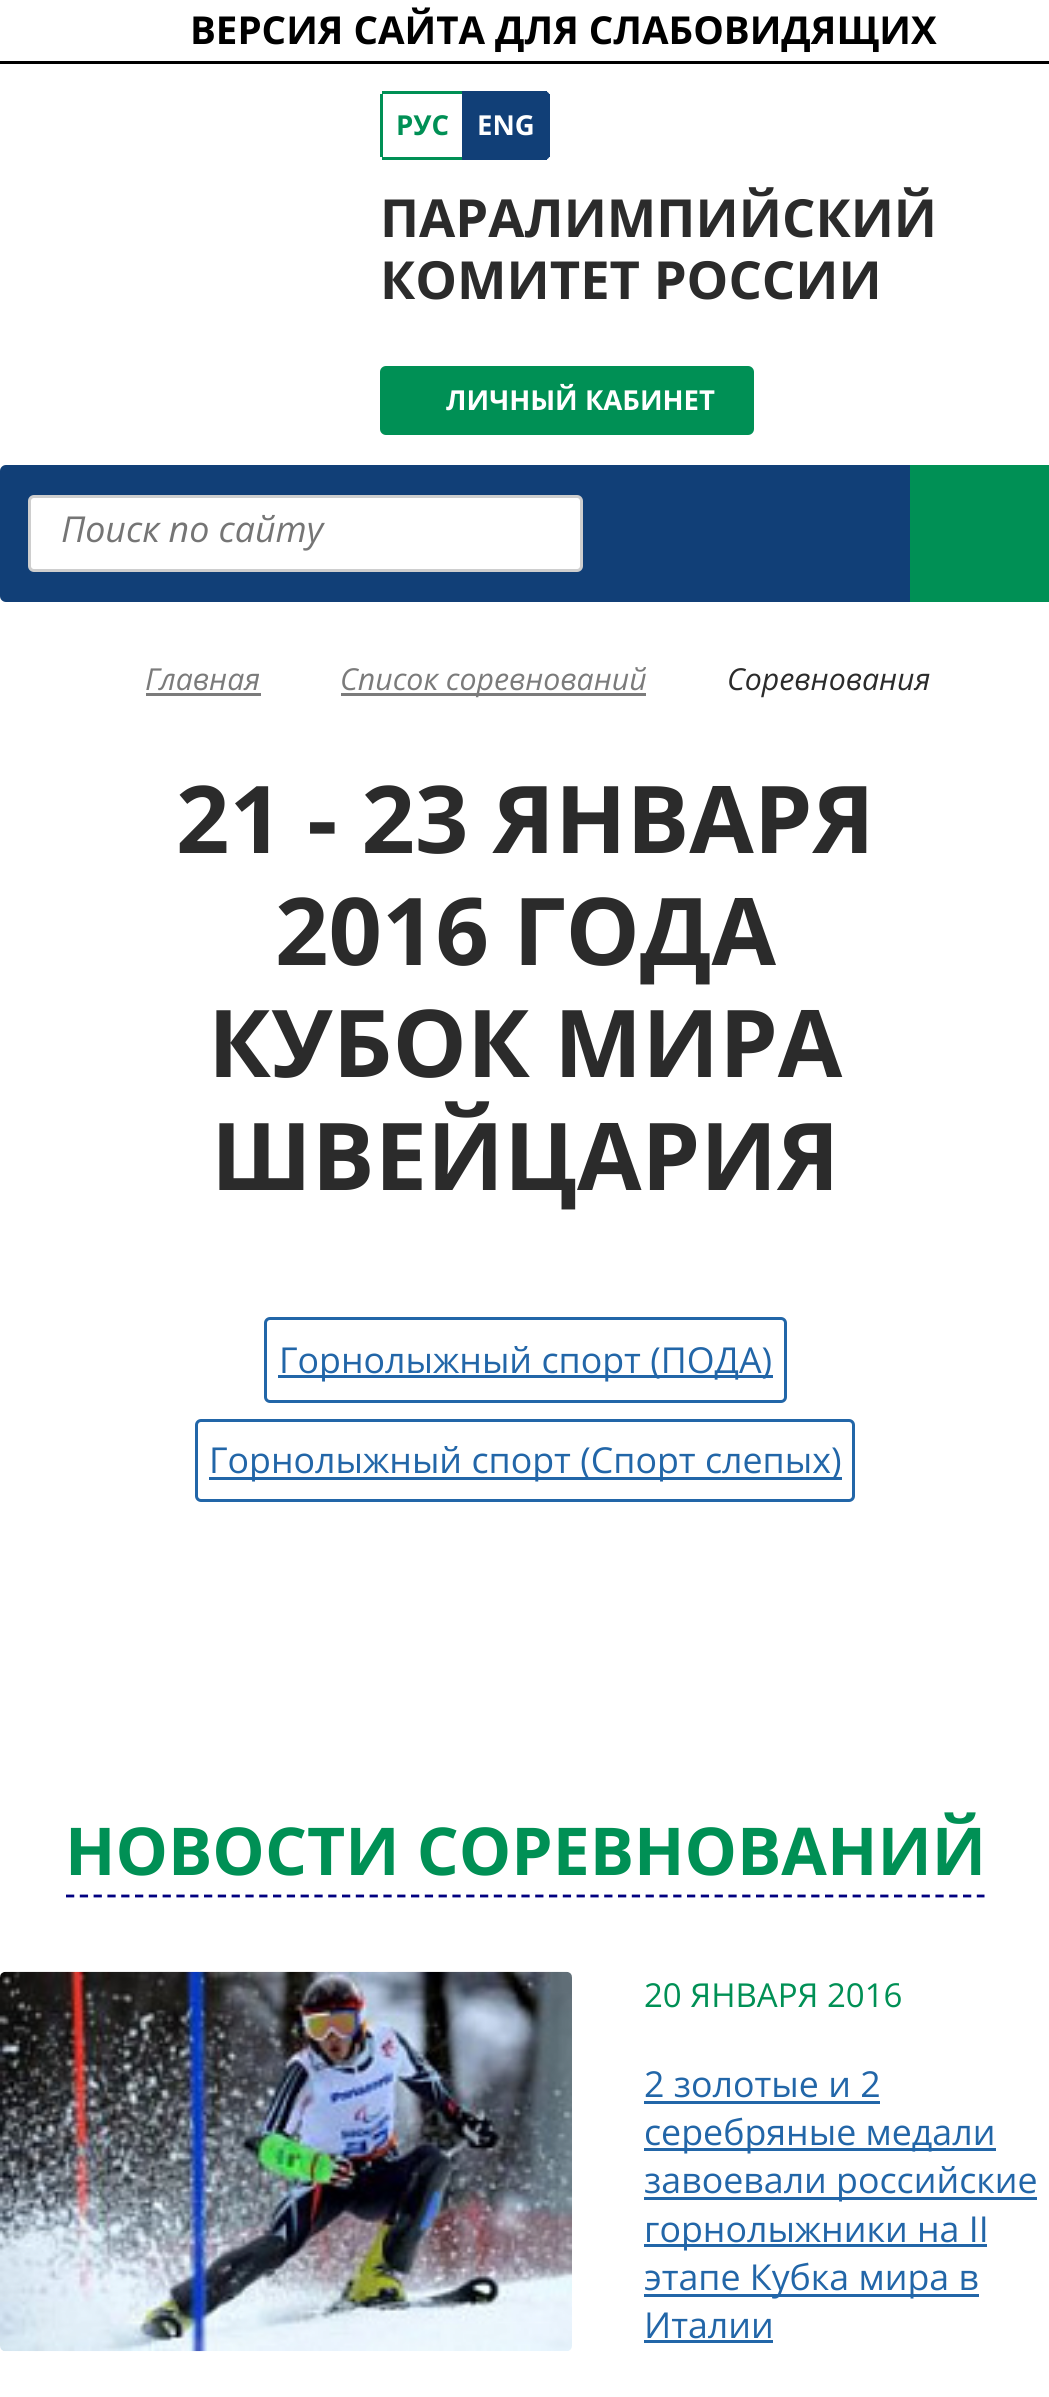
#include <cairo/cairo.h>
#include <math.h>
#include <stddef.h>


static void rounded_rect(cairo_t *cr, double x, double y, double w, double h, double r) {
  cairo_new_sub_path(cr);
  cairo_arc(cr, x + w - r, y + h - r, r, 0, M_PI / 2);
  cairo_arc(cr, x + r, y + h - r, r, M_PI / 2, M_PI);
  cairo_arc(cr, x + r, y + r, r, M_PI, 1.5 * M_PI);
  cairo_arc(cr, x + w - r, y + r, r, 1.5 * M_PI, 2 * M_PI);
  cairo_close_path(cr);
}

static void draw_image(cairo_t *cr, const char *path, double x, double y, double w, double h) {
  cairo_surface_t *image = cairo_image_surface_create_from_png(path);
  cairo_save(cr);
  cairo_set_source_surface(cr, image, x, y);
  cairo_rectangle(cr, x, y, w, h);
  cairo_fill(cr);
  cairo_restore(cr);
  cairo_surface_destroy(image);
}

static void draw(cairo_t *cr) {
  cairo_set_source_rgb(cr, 1, 1, 1);
  cairo_paint(cr);
  cairo_set_source_rgb(cr, 0, 0, 0);
  cairo_rectangle(cr, 0, 61, 1049, 3);
  cairo_fill(cr);
  cairo_set_source_rgb(cr, 0, 144 / 255.0, 85 / 255.0);
  cairo_rectangle(cr, 382, 91, 80, 3);
  cairo_fill(cr);
  cairo_rectangle(cr, 382, 157, 80, 3);
  cairo_fill(cr);
  cairo_rectangle(cr, 380, 94, 3, 63);
  cairo_fill(cr);
  cairo_set_source_rgb(cr, 17 / 255.0, 63 / 255.0, 119 / 255.0);
  cairo_new_path(cr);
  cairo_move_to(cr, 462, 91);
  cairo_line_to(cr, 544, 91);
  cairo_curve_to(cr, 547.5, 91, 550, 93.5, 550, 97);
  cairo_line_to(cr, 550, 154);
  cairo_curve_to(cr, 550, 157.5, 547.5, 160, 544, 160);
  cairo_line_to(cr, 462, 160);
  cairo_close_path(cr);
  cairo_fill(cr);
  cairo_rectangle(cr, 544, 91, 3, 1);
  cairo_fill(cr);
  cairo_rectangle(cr, 549, 94, 1, 63);
  cairo_fill(cr);
  cairo_rectangle(cr, 544, 159, 3, 1);
  cairo_fill(cr);
  cairo_set_source_rgb(cr, 0, 144 / 255.0, 85 / 255.0);
  rounded_rect(cr, 380, 366, 374, 69, 6);
  cairo_fill(cr);
  cairo_set_source_rgb(cr, 17 / 255.0, 63 / 255.0, 119 / 255.0);
  rounded_rect(cr, 0, 465, 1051, 137, 6);
  cairo_fill(cr);
  cairo_set_source_rgb(cr, 0, 144 / 255.0, 85 / 255.0);
  cairo_rectangle(cr, 910, 465, 139, 137);
  cairo_fill(cr);
  cairo_set_source_rgb(cr, 1, 1, 1);
  rounded_rect(cr, 29.5, 496.5, 552, 74, 4.5);
  cairo_fill_preserve(cr);
  cairo_set_source_rgb(cr, 206 / 255.0, 206 / 255.0, 206 / 255.0);
  cairo_set_line_width(cr, 3);
  cairo_stroke(cr);
  cairo_set_source_rgb(cr, 123 / 255.0, 123 / 255.0, 123 / 255.0);
  cairo_rectangle(cr, 146, 693, 115, 3);
  cairo_fill(cr);
  cairo_rectangle(cr, 341, 693, 305, 3);
  cairo_fill(cr);
  rounded_rect(cr, 265.5, 1318.5, 520, 83, 4.5);
  cairo_set_source_rgb(cr, 34 / 255.0, 102 / 255.0, 168 / 255.0);
  cairo_stroke(cr);
  cairo_rectangle(cr, 278, 1375, 495, 3);
  cairo_fill(cr);
  rounded_rect(cr, 196.5, 1420.5, 657, 80, 4.5);
  cairo_stroke(cr);
  cairo_rectangle(cr, 209, 1477, 633, 3);
  cairo_fill(cr);
  cairo_new_path(cr);
  cairo_move_to(cr, 66, 1896);
  cairo_line_to(cr, 984.5, 1896);
  cairo_set_source_rgb(cr, 0, 0, 128 / 255.0);
  cairo_set_line_width(cr, 2.8);
  cairo_set_dash(cr, (double[]){8.25, 5.55}, 2, 0);
  cairo_stroke(cr);
  draw_image(cr, "images/1.png", 0, 1971, 572, 381);
  cairo_set_source_rgb(cr, 34 / 255.0, 102 / 255.0, 168 / 255.0);
  cairo_rectangle(cr, 644, 2101, 236, 3);
  cairo_fill(cr);
  cairo_rectangle(cr, 644, 2148, 352, 3);
  cairo_fill(cr);
  cairo_rectangle(cr, 644, 2197, 393, 3);
  cairo_fill(cr);
  cairo_rectangle(cr, 644, 2244, 343, 3);
  cairo_fill(cr);
  cairo_rectangle(cr, 644, 2294, 335, 3);
  cairo_fill(cr);
  cairo_rectangle(cr, 644, 2340, 129, 3);
  cairo_fill(cr);
  cairo_select_font_face(cr, "Open Sans", CAIRO_FONT_SLANT_NORMAL, CAIRO_FONT_WEIGHT_BOLD);
  cairo_set_font_size(cr, 38.5);
  cairo_set_source_rgb(cr, 0, 0, 0);
  cairo_move_to(cr, 190, 44);
  cairo_show_text(cr, "ВЕРСИЯ САЙТА ДЛЯ СЛАБОВИДЯЩИХ");
  cairo_set_font_size(cr, 27.5);
  cairo_set_source_rgb(cr, 0, 144 / 255.0, 85 / 255.0);
  cairo_move_to(cr, 396, 135);
  cairo_show_text(cr, "РУС");
  cairo_set_source_rgb(cr, 1, 1, 1);
  cairo_move_to(cr, 477, 135);
  cairo_show_text(cr, "ENG");
  cairo_set_font_size(cr, 52.5);
  cairo_set_source_rgb(cr, 43 / 255.0, 43 / 255.0, 43 / 255.0);
  cairo_move_to(cr, 380, 237);
  cairo_show_text(cr, "ПАРАЛИМПИЙСКИЙ");
  cairo_move_to(cr, 380, 299);
  cairo_show_text(cr, "КОМИТЕТ РОССИИ");
  cairo_set_font_size(cr, 27.5);
  cairo_set_source_rgb(cr, 1, 1, 1);
  cairo_move_to(cr, 446, 410);
  cairo_show_text(cr, "ЛИЧНЫЙ КАБИНЕТ");
  cairo_select_font_face(cr, "Open Sans", CAIRO_FONT_SLANT_ITALIC, CAIRO_FONT_WEIGHT_NORMAL);
  cairo_set_font_size(cr, 35.75);
  cairo_set_source_rgb(cr, 117 / 255.0, 117 / 255.0, 117 / 255.0);
  cairo_move_to(cr, 61, 542);
  cairo_show_text(cr, "Поиск по сайту");
  cairo_set_font_size(cr, 30.25);
  cairo_set_source_rgb(cr, 123 / 255.0, 123 / 255.0, 123 / 255.0);
  cairo_move_to(cr, 145, 690);
  cairo_show_text(cr, "Главная");
  cairo_move_to(cr, 340, 690);
  cairo_show_text(cr, "Список соревнований");
  cairo_set_source_rgb(cr, 43 / 255.0, 43 / 255.0, 43 / 255.0);
  cairo_move_to(cr, 727, 690);
  cairo_show_text(cr, "Соревнования");
  cairo_select_font_face(cr, "Open Sans", CAIRO_FONT_SLANT_NORMAL, CAIRO_FONT_WEIGHT_BOLD);
  cairo_set_font_size(cr, 93.5);
  cairo_move_to(cr, 176, 853);
  cairo_show_text(cr, "21 - 23 ЯНВАРЯ");
  cairo_move_to(cr, 275, 965);
  cairo_show_text(cr, "2016 ГОДА");
  cairo_move_to(cr, 208, 1077);
  cairo_show_text(cr, "КУБОК МИРА");
  cairo_move_to(cr, 211, 1190);
  cairo_show_text(cr, "ШВЕЙЦАРИЯ");
  cairo_select_font_face(cr, "Open Sans", CAIRO_FONT_SLANT_NORMAL, CAIRO_FONT_WEIGHT_NORMAL);
  cairo_set_font_size(cr, 35.75);
  cairo_set_source_rgb(cr, 34 / 255.0, 102 / 255.0, 168 / 255.0);
  cairo_move_to(cr, 279, 1373);
  cairo_show_text(cr, "Горнолыжный спорт (ПОДА)");
  cairo_move_to(cr, 209, 1473);
  cairo_show_text(cr, "Горнолыжный спорт (Спорт слепых)");
  cairo_select_font_face(cr, "Open Sans", CAIRO_FONT_SLANT_NORMAL, CAIRO_FONT_WEIGHT_BOLD);
  cairo_set_font_size(cr, 66);
  cairo_set_source_rgb(cr, 0, 144 / 255.0, 85 / 255.0);
  cairo_move_to(cr, 65, 1875);
  cairo_show_text(cr, "НОВОСТИ СОРЕВНОВАНИЙ");
  cairo_select_font_face(cr, "Open Sans", CAIRO_FONT_SLANT_NORMAL, CAIRO_FONT_WEIGHT_NORMAL);
  cairo_set_font_size(cr, 33);
  cairo_move_to(cr, 644, 2007);
  cairo_show_text(cr, "20 ЯНВАРЯ 2016");
  cairo_set_font_size(cr, 35.75);
  cairo_set_source_rgb(cr, 34 / 255.0, 102 / 255.0, 168 / 255.0);
  cairo_move_to(cr, 644, 2097);
  cairo_show_text(cr, "2 золотые и 2");
  cairo_move_to(cr, 644, 2145);
  cairo_show_text(cr, "серебряные медали");
  cairo_move_to(cr, 644, 2193);
  cairo_show_text(cr, "завоевали российские");
  cairo_move_to(cr, 644, 2242);
  cairo_show_text(cr, "горнолыжники на II");
  cairo_move_to(cr, 644, 2290);
  cairo_show_text(cr, "этапе Кубка мира в");
  cairo_move_to(cr, 644, 2338);
  cairo_show_text(cr, "Италии");
}

int main(void) {
  cairo_surface_t *surface = cairo_image_surface_create(CAIRO_FORMAT_RGB24, 1049, 2397);
  cairo_t *cr = cairo_create(surface);
  cairo_font_options_t *options = cairo_font_options_create();
  cairo_font_options_set_hint_metrics(options, CAIRO_HINT_METRICS_OFF);
  cairo_font_options_set_hint_style(options, CAIRO_HINT_STYLE_NONE);
  cairo_set_font_options(cr, options);
  cairo_set_miter_limit(cr, 4);
  draw(cr);
  cairo_surface_write_to_png(surface, "out.png");
  cairo_font_options_destroy(options);
  cairo_destroy(cr);
  cairo_surface_destroy(surface);
  return 0;
}
